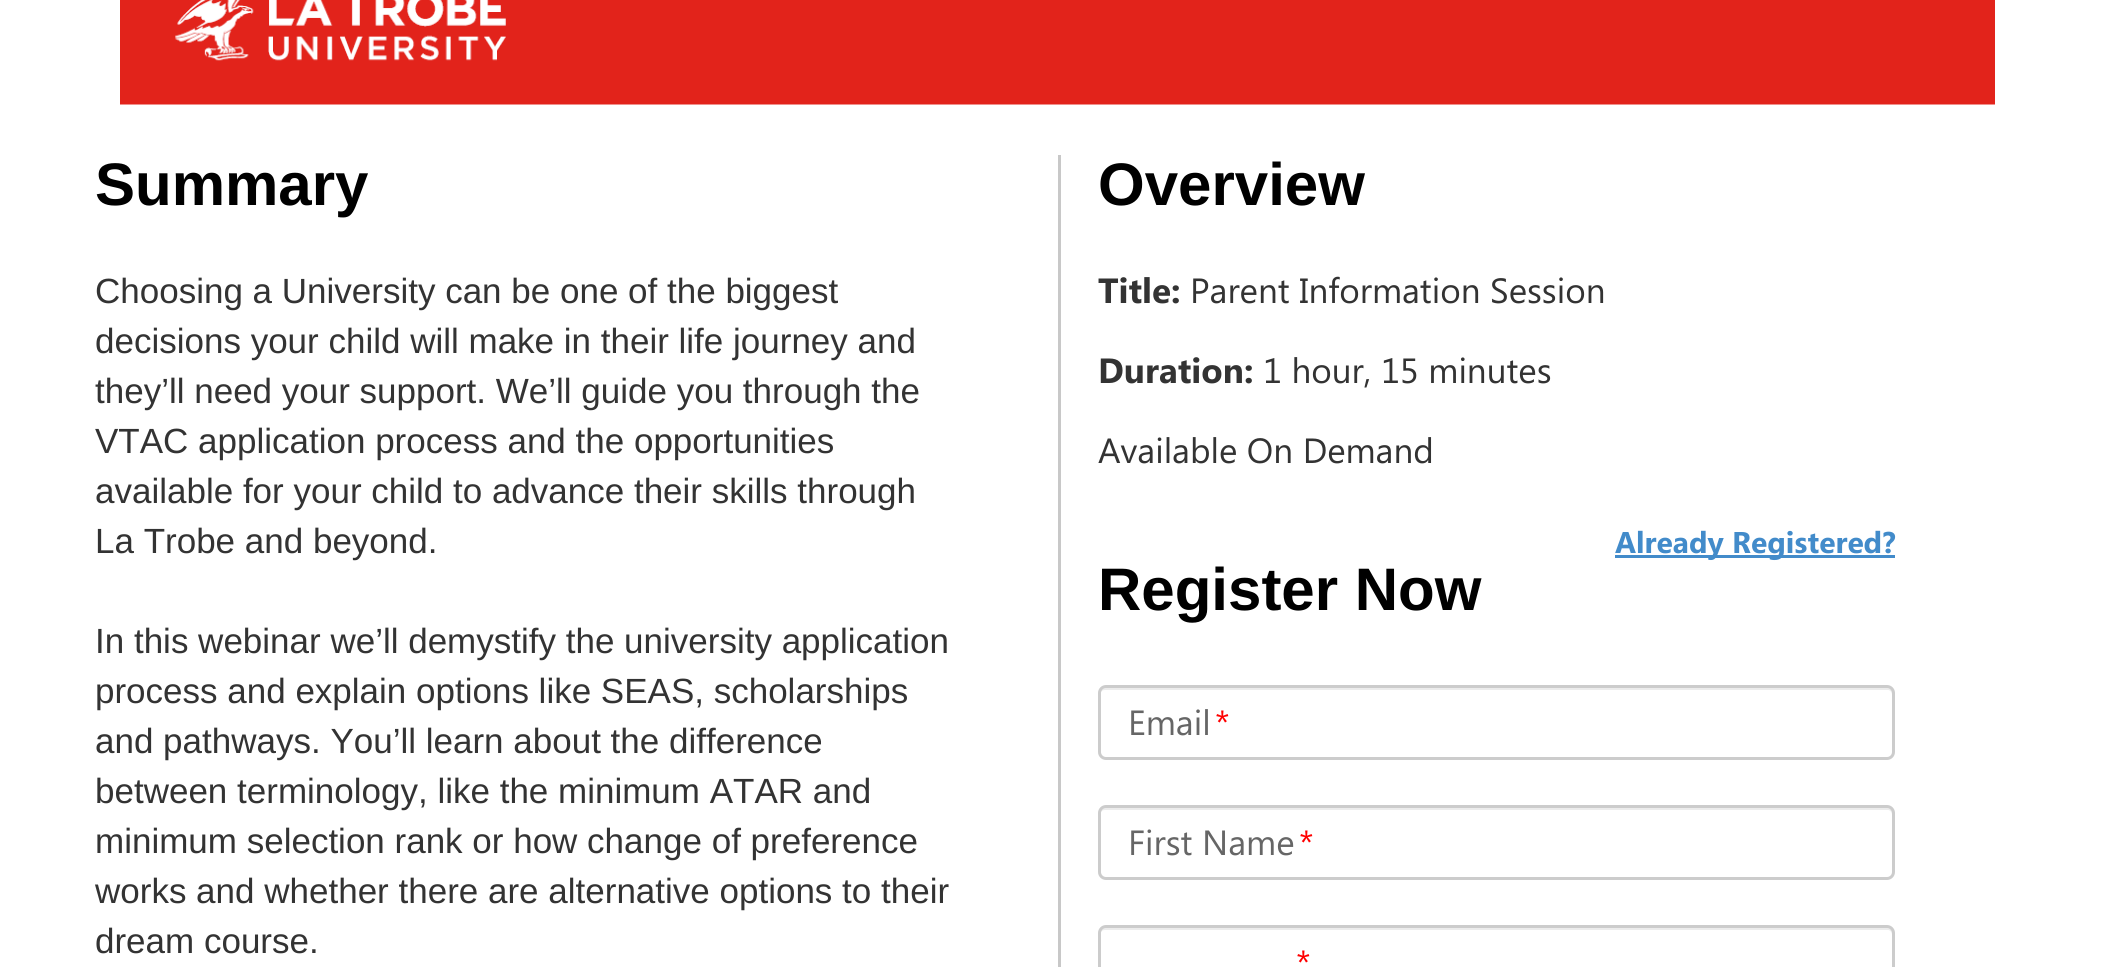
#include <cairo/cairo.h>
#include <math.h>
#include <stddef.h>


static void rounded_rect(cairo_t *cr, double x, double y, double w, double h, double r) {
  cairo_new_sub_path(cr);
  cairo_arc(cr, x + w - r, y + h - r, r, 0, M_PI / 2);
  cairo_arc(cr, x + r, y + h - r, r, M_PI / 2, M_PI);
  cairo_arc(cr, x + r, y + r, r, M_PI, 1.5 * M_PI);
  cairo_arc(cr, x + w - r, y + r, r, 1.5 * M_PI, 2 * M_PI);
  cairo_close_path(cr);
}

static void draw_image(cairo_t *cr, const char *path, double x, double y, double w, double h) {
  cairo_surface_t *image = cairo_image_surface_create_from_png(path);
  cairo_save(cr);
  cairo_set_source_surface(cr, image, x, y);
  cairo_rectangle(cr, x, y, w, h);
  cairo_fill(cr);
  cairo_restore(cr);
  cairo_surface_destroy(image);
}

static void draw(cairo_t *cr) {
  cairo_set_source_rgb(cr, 1, 1, 1);
  cairo_paint(cr);
  draw_image(cr, "images/1.png", 120, 0, 1875, 105);
  cairo_set_source_rgb(cr, 200 / 255.0, 200 / 255.0, 200 / 255.0);
  cairo_rectangle(cr, 1058, 155, 3, 812);
  cairo_fill(cr);
  cairo_set_source_rgb(cr, 66 / 255.0, 139 / 255.0, 202 / 255.0);
  cairo_rectangle(cr, 1615, 555, 280, 3);
  cairo_fill(cr);
  cairo_select_font_face(cr, "Liberation Sans", CAIRO_FONT_SLANT_NORMAL, CAIRO_FONT_WEIGHT_BOLD);
  cairo_set_font_size(cr, 60);
  cairo_set_source_rgb(cr, 0, 0, 0);
  cairo_move_to(cr, 95, 205);
  cairo_show_text(cr, "Summary");
  cairo_select_font_face(cr, "Liberation Sans", CAIRO_FONT_SLANT_NORMAL, CAIRO_FONT_WEIGHT_NORMAL);
  cairo_set_font_size(cr, 35);
  cairo_set_source_rgb(cr, 51 / 255.0, 51 / 255.0, 51 / 255.0);
  cairo_move_to(cr, 95, 303);
  cairo_show_text(cr, "Choosing a University can be one of the biggest");
  cairo_move_to(cr, 95, 353);
  cairo_show_text(cr, "decisions your child will make in their life journey and");
  cairo_move_to(cr, 95, 403);
  cairo_show_text(cr, "they’ll need your support. We’ll guide you through the");
  cairo_move_to(cr, 95, 453);
  cairo_show_text(cr, "VTAC application process and the opportunities");
  cairo_move_to(cr, 95, 503);
  cairo_show_text(cr, "available for your child to advance their skills through");
  cairo_move_to(cr, 95, 553);
  cairo_show_text(cr, "La Trobe and beyond.");
  cairo_move_to(cr, 95, 653);
  cairo_show_text(cr, "In this webinar we’ll demystify the university application");
  cairo_move_to(cr, 95, 703);
  cairo_show_text(cr, "process and explain options like SEAS, scholarships");
  cairo_move_to(cr, 95, 753);
  cairo_show_text(cr, "and pathways. You’ll learn about the difference");
  cairo_move_to(cr, 95, 803);
  cairo_show_text(cr, "between terminology, like the minimum ATAR and");
  cairo_move_to(cr, 95, 853);
  cairo_show_text(cr, "minimum selection rank or how change of preference");
  cairo_move_to(cr, 95, 903);
  cairo_show_text(cr, "works and whether there are alternative options to their");
  cairo_move_to(cr, 95, 953);
  cairo_show_text(cr, "dream course.");
  cairo_select_font_face(cr, "Liberation Sans", CAIRO_FONT_SLANT_NORMAL, CAIRO_FONT_WEIGHT_BOLD);
  cairo_set_font_size(cr, 60);
  cairo_set_source_rgb(cr, 0, 0, 0);
  cairo_move_to(cr, 1098, 205);
  cairo_show_text(cr, "Overview");
  cairo_select_font_face(cr, "Segoe UI", CAIRO_FONT_SLANT_NORMAL, CAIRO_FONT_WEIGHT_BOLD);
  cairo_set_font_size(cr, 35);
  cairo_set_source_rgb(cr, 51 / 255.0, 51 / 255.0, 51 / 255.0);
  cairo_move_to(cr, 1098, 303);
  cairo_show_text(cr, "Title:");
  cairo_select_font_face(cr, "Segoe UI", CAIRO_FONT_SLANT_NORMAL, CAIRO_FONT_WEIGHT_NORMAL);
  cairo_move_to(cr, 1190, 303);
  cairo_show_text(cr, "Parent Information Session");
  cairo_select_font_face(cr, "Segoe UI", CAIRO_FONT_SLANT_NORMAL, CAIRO_FONT_WEIGHT_BOLD);
  cairo_move_to(cr, 1098, 383);
  cairo_show_text(cr, "Duration:");
  cairo_select_font_face(cr, "Segoe UI", CAIRO_FONT_SLANT_NORMAL, CAIRO_FONT_WEIGHT_NORMAL);
  cairo_move_to(cr, 1263, 383);
  cairo_show_text(cr, "1 hour, 15 minutes");
  cairo_move_to(cr, 1098, 463);
  cairo_show_text(cr, "Available On Demand");
  cairo_select_font_face(cr, "Segoe UI", CAIRO_FONT_SLANT_NORMAL, CAIRO_FONT_WEIGHT_BOLD);
  cairo_set_font_size(cr, 30);
  cairo_set_source_rgb(cr, 66 / 255.0, 139 / 255.0, 202 / 255.0);
  cairo_move_to(cr, 1615, 553);
  cairo_show_text(cr, "Already Registered?");
  cairo_select_font_face(cr, "Liberation Sans", CAIRO_FONT_SLANT_NORMAL, CAIRO_FONT_WEIGHT_BOLD);
  cairo_set_font_size(cr, 60);
  cairo_set_source_rgb(cr, 0, 0, 0);
  cairo_move_to(cr, 1098, 610);
  cairo_show_text(cr, "Register Now");
  cairo_select_font_face(cr, "Segoe UI", CAIRO_FONT_SLANT_NORMAL, CAIRO_FONT_WEIGHT_NORMAL);
  cairo_set_font_size(cr, 35);
  cairo_set_source_rgb(cr, 102 / 255.0, 102 / 255.0, 102 / 255.0);
  cairo_move_to(cr, 1128, 735);
  cairo_show_text(cr, "Email");
  cairo_set_source_rgb(cr, 1, 0, 0);
  cairo_move_to(cr, 1215, 735);
  cairo_show_text(cr, "*");
  cairo_set_source_rgb(cr, 236 / 255.0, 236 / 255.0, 236 / 255.0);
  cairo_new_path(cr);
  cairo_move_to(cr, 1105, 690);
  cairo_line_to(cr, 1888, 690);
  cairo_curve_to(cr, 1890, 690, 1892, 692, 1892, 695);
  cairo_line_to(cr, 1892, 756);
  cairo_curve_to(cr, 1893, 755, 1893, 754, 1893, 753);
  cairo_line_to(cr, 1893, 693);
  cairo_curve_to(cr, 1893, 690, 1891, 688, 1888, 688);
  cairo_line_to(cr, 1105, 688);
  cairo_curve_to(cr, 1102, 688, 1100, 690, 1100, 693);
  cairo_line_to(cr, 1100, 695);
  cairo_curve_to(cr, 1100, 692, 1102, 690, 1105, 690);
  cairo_close_path(cr);
  cairo_fill(cr);
  rounded_rect(cr, 1099.5, 686.5, 794, 72, 6.5);
  cairo_set_source_rgb(cr, 204 / 255.0, 204 / 255.0, 204 / 255.0);
  cairo_set_line_width(cr, 3);
  cairo_stroke(cr);
  cairo_set_source_rgb(cr, 102 / 255.0, 102 / 255.0, 102 / 255.0);
  cairo_move_to(cr, 1128, 855);
  cairo_show_text(cr, "First Name");
  cairo_set_source_rgb(cr, 1, 0, 0);
  cairo_move_to(cr, 1299, 855);
  cairo_show_text(cr, "*");
  cairo_set_source_rgb(cr, 236 / 255.0, 236 / 255.0, 236 / 255.0);
  cairo_new_path(cr);
  cairo_move_to(cr, 1105, 810);
  cairo_line_to(cr, 1888, 810);
  cairo_curve_to(cr, 1890, 810, 1892, 812, 1892, 815);
  cairo_line_to(cr, 1892, 876);
  cairo_curve_to(cr, 1893, 875, 1893, 874, 1893, 873);
  cairo_line_to(cr, 1893, 813);
  cairo_curve_to(cr, 1893, 810, 1891, 808, 1888, 808);
  cairo_line_to(cr, 1105, 808);
  cairo_curve_to(cr, 1102, 808, 1100, 810, 1100, 813);
  cairo_line_to(cr, 1100, 815);
  cairo_curve_to(cr, 1100, 812, 1102, 810, 1105, 810);
  cairo_close_path(cr);
  cairo_fill(cr);
  rounded_rect(cr, 1099.5, 806.5, 794, 72, 6.5);
  cairo_set_source_rgb(cr, 204 / 255.0, 204 / 255.0, 204 / 255.0);
  cairo_stroke(cr);
  cairo_set_source_rgb(cr, 1, 0, 0);
  cairo_move_to(cr, 1296, 975);
  cairo_show_text(cr, "*");
  cairo_set_source_rgb(cr, 236 / 255.0, 236 / 255.0, 236 / 255.0);
  cairo_new_path(cr);
  cairo_move_to(cr, 1105, 930);
  cairo_line_to(cr, 1888, 930);
  cairo_curve_to(cr, 1890, 930, 1892, 932, 1892, 935);
  cairo_line_to(cr, 1892, 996);
  cairo_curve_to(cr, 1893, 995, 1893, 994, 1893, 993);
  cairo_line_to(cr, 1893, 933);
  cairo_curve_to(cr, 1893, 930, 1891, 928, 1888, 928);
  cairo_line_to(cr, 1105, 928);
  cairo_curve_to(cr, 1102, 928, 1100, 930, 1100, 933);
  cairo_line_to(cr, 1100, 935);
  cairo_curve_to(cr, 1100, 932, 1102, 930, 1105, 930);
  cairo_close_path(cr);
  cairo_fill(cr);
  rounded_rect(cr, 1099.5, 926.5, 794, 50, 6.5);
  cairo_set_source_rgb(cr, 204 / 255.0, 204 / 255.0, 204 / 255.0);
  cairo_stroke(cr);
}

int main(void) {
  cairo_surface_t *surface = cairo_image_surface_create(CAIRO_FORMAT_RGB24, 2113, 967);
  cairo_t *cr = cairo_create(surface);
  cairo_font_options_t *options = cairo_font_options_create();
  cairo_font_options_set_hint_metrics(options, CAIRO_HINT_METRICS_OFF);
  cairo_font_options_set_hint_style(options, CAIRO_HINT_STYLE_NONE);
  cairo_set_font_options(cr, options);
  cairo_set_miter_limit(cr, 4);
  draw(cr);
  cairo_surface_write_to_png(surface, "out.png");
  cairo_font_options_destroy(options);
  cairo_destroy(cr);
  cairo_surface_destroy(surface);
  return 0;
}
